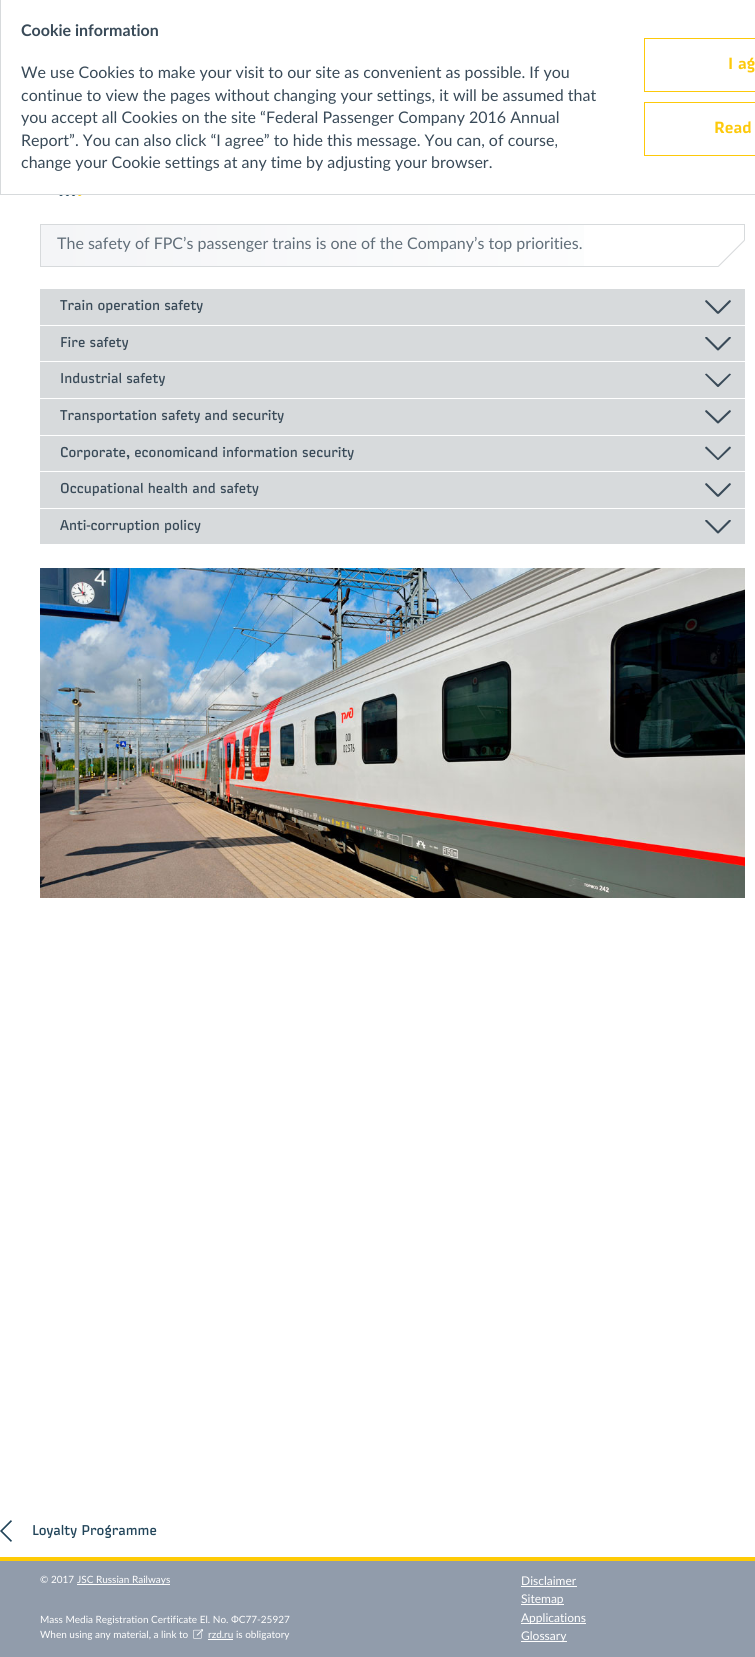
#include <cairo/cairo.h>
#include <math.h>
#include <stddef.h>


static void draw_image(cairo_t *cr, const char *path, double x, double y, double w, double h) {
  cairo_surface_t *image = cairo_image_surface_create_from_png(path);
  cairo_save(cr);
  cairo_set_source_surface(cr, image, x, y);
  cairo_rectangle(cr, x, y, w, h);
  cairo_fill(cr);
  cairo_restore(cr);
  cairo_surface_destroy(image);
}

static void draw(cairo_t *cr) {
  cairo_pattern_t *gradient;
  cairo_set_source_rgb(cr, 1, 1, 1);
  cairo_paint(cr);
  cairo_set_source_rgb(cr, 215 / 255.0, 218 / 255.0, 220 / 255.0);
  cairo_rectangle(cr, 0, 194, 755, 1);
  cairo_fill(cr);
  cairo_rectangle(cr, 0, 0, 1, 195);
  cairo_fill(cr);
  cairo_rectangle(cr, 644.5, 38.5, 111, 53);
  cairo_set_source_rgb(cr, 253 / 255.0, 201 / 255.0, 10 / 255.0);
  cairo_set_line_width(cr, 1);
  cairo_stroke(cr);
  cairo_rectangle(cr, 644.5, 102.5, 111, 53);
  cairo_stroke(cr);
  draw_image(cr, "images/1.png", 59, 195, 23, 1);
  gradient = cairo_pattern_create_linear(41, 246, 744, 245);
  cairo_pattern_add_color_stop_rgba(gradient, 0, 244 / 255.0, 245 / 255.0, 247 / 255.0, 1);
  cairo_pattern_add_color_stop_rgba(gradient, 1, 1, 1, 1, 1);
  cairo_set_source(cr, gradient);
  cairo_pattern_destroy(gradient);
  cairo_rectangle(cr, 41, 225, 543, 41);
  cairo_fill(cr);
  cairo_rectangle(cr, 40.5, 224.5, 704, 42);
  cairo_set_source_rgb(cr, 215 / 255.0, 218 / 255.0, 220 / 255.0);
  cairo_stroke(cr);
  cairo_set_source_rgb(cr, 1, 1, 1);
  cairo_new_path(cr);
  cairo_move_to(cr, 744, 240);
  cairo_line_to(cr, 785, 280);
  cairo_line_to(cr, 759, 307);
  cairo_line_to(cr, 718, 266);
  cairo_close_path(cr);
  cairo_fill(cr);
  cairo_set_source_rgb(cr, 215 / 255.0, 218 / 255.0, 220 / 255.0);
  cairo_new_path(cr);
  cairo_move_to(cr, 744, 240);
  cairo_line_to(cr, 745, 240.5);
  cairo_line_to(cr, 718.5, 267);
  cairo_line_to(cr, 718, 266);
  cairo_close_path(cr);
  cairo_fill(cr);
  cairo_rectangle(cr, 40, 289, 705, 36);
  cairo_fill(cr);
  cairo_set_source_rgb(cr, 57 / 255.0, 74 / 255.0, 88 / 255.0);
  cairo_new_path(cr);
  cairo_move_to(cr, 705.5, 300.5);
  cairo_curve_to(cr, 706, 300, 706.5, 300, 707, 300.5);
  cairo_line_to(cr, 718.5, 312);
  cairo_curve_to(cr, 719, 312.5, 719, 313, 718.5, 313.5);
  cairo_curve_to(cr, 718, 313.5, 717.5, 313.5, 717, 313.5);
  cairo_line_to(cr, 705.5, 302);
  cairo_curve_to(cr, 705, 301.5, 705, 301, 705.5, 300.5);
  cairo_close_path(cr);
  cairo_fill(cr);
  cairo_new_path(cr);
  cairo_move_to(cr, 730.5, 300.5);
  cairo_curve_to(cr, 731, 301, 731, 301.5, 730.5, 302);
  cairo_line_to(cr, 719, 313.5);
  cairo_curve_to(cr, 718.5, 313.5, 718, 313.5, 717.5, 313.5);
  cairo_curve_to(cr, 717, 313, 717, 312.5, 717.5, 312);
  cairo_line_to(cr, 729, 300.5);
  cairo_curve_to(cr, 729.5, 300, 730, 300, 730.5, 300.5);
  cairo_close_path(cr);
  cairo_fill(cr);
  cairo_set_source_rgb(cr, 215 / 255.0, 218 / 255.0, 220 / 255.0);
  cairo_rectangle(cr, 40, 326, 705, 35);
  cairo_fill(cr);
  cairo_set_source_rgb(cr, 57 / 255.0, 74 / 255.0, 88 / 255.0);
  cairo_new_path(cr);
  cairo_move_to(cr, 705.5, 337);
  cairo_curve_to(cr, 706, 337, 706.5, 337, 707, 337);
  cairo_line_to(cr, 718.5, 348.5);
  cairo_curve_to(cr, 719, 349, 719, 349.5, 718.5, 350);
  cairo_curve_to(cr, 718, 350.5, 717.5, 350.5, 717, 350);
  cairo_line_to(cr, 705.5, 338.5);
  cairo_curve_to(cr, 705, 338, 705, 337.5, 705.5, 337);
  cairo_close_path(cr);
  cairo_fill(cr);
  cairo_new_path(cr);
  cairo_move_to(cr, 730.5, 337);
  cairo_curve_to(cr, 731, 337.5, 731, 338, 730.5, 338.5);
  cairo_line_to(cr, 719, 350);
  cairo_curve_to(cr, 718.5, 350.5, 718, 350.5, 717.5, 350);
  cairo_curve_to(cr, 717, 349.5, 717, 349, 717.5, 348.5);
  cairo_line_to(cr, 729, 337);
  cairo_curve_to(cr, 729.5, 337, 730, 337, 730.5, 337);
  cairo_close_path(cr);
  cairo_fill(cr);
  cairo_set_source_rgb(cr, 215 / 255.0, 218 / 255.0, 220 / 255.0);
  cairo_rectangle(cr, 40, 362, 705, 36);
  cairo_fill(cr);
  cairo_set_source_rgb(cr, 57 / 255.0, 74 / 255.0, 88 / 255.0);
  cairo_new_path(cr);
  cairo_move_to(cr, 705.5, 374);
  cairo_curve_to(cr, 706, 373.5, 706.5, 373.5, 707, 374);
  cairo_line_to(cr, 718.5, 385);
  cairo_curve_to(cr, 719, 385.5, 719, 386, 718.5, 386.5);
  cairo_curve_to(cr, 718, 387, 717.5, 387, 717, 386.5);
  cairo_line_to(cr, 705.5, 375);
  cairo_curve_to(cr, 705, 375, 705, 374, 705.5, 374);
  cairo_close_path(cr);
  cairo_fill(cr);
  cairo_new_path(cr);
  cairo_move_to(cr, 730.5, 374);
  cairo_curve_to(cr, 731, 374, 731, 375, 730.5, 375);
  cairo_line_to(cr, 719, 386.5);
  cairo_curve_to(cr, 718.5, 387, 718, 387, 717.5, 386.5);
  cairo_curve_to(cr, 717, 386, 717, 385.5, 717.5, 385);
  cairo_line_to(cr, 729, 374);
  cairo_curve_to(cr, 729.5, 373.5, 730, 373.5, 730.5, 374);
  cairo_close_path(cr);
  cairo_fill(cr);
  cairo_set_source_rgb(cr, 215 / 255.0, 218 / 255.0, 220 / 255.0);
  cairo_rectangle(cr, 40, 399, 705, 36);
  cairo_fill(cr);
  cairo_set_source_rgb(cr, 57 / 255.0, 74 / 255.0, 88 / 255.0);
  cairo_new_path(cr);
  cairo_move_to(cr, 705.5, 410.5);
  cairo_curve_to(cr, 706, 410, 706.5, 410, 707, 410.5);
  cairo_line_to(cr, 718.5, 421.5);
  cairo_curve_to(cr, 719, 422, 719, 422.5, 718.5, 423);
  cairo_curve_to(cr, 718, 423.5, 717.5, 423.5, 717, 423);
  cairo_line_to(cr, 705.5, 412);
  cairo_curve_to(cr, 705, 411.5, 705, 411, 705.5, 410.5);
  cairo_close_path(cr);
  cairo_fill(cr);
  cairo_new_path(cr);
  cairo_move_to(cr, 730.5, 410.5);
  cairo_curve_to(cr, 731, 411, 731, 411.5, 730.5, 412);
  cairo_line_to(cr, 719, 423);
  cairo_curve_to(cr, 718.5, 423.5, 718, 423.5, 717.5, 423);
  cairo_curve_to(cr, 717, 422.5, 717, 422, 717.5, 421.5);
  cairo_line_to(cr, 729, 410.5);
  cairo_curve_to(cr, 729.5, 410, 730, 410, 730.5, 410.5);
  cairo_close_path(cr);
  cairo_fill(cr);
  cairo_set_source_rgb(cr, 215 / 255.0, 218 / 255.0, 220 / 255.0);
  cairo_rectangle(cr, 40, 436, 705, 35);
  cairo_fill(cr);
  cairo_set_source_rgb(cr, 57 / 255.0, 74 / 255.0, 88 / 255.0);
  cairo_new_path(cr);
  cairo_move_to(cr, 705.5, 447);
  cairo_curve_to(cr, 706, 446.5, 706.5, 446.5, 707, 447);
  cairo_line_to(cr, 718.5, 458.5);
  cairo_curve_to(cr, 719, 458.5, 719, 459.5, 718.5, 459.5);
  cairo_curve_to(cr, 718, 460, 717.5, 460, 717, 459.5);
  cairo_line_to(cr, 705.5, 448.5);
  cairo_curve_to(cr, 705, 448, 705, 447.5, 705.5, 447);
  cairo_close_path(cr);
  cairo_fill(cr);
  cairo_new_path(cr);
  cairo_move_to(cr, 730.5, 447);
  cairo_curve_to(cr, 731, 447.5, 731, 448, 730.5, 448.5);
  cairo_line_to(cr, 719, 459.5);
  cairo_curve_to(cr, 718.5, 460, 718, 460, 717.5, 459.5);
  cairo_curve_to(cr, 717, 459.5, 717, 458.5, 717.5, 458.5);
  cairo_line_to(cr, 729, 447);
  cairo_curve_to(cr, 729.5, 446.5, 730, 446.5, 730.5, 447);
  cairo_close_path(cr);
  cairo_fill(cr);
  cairo_set_source_rgb(cr, 215 / 255.0, 218 / 255.0, 220 / 255.0);
  cairo_rectangle(cr, 40, 472, 705, 36);
  cairo_fill(cr);
  cairo_set_source_rgb(cr, 57 / 255.0, 74 / 255.0, 88 / 255.0);
  cairo_new_path(cr);
  cairo_move_to(cr, 705.5, 483.5);
  cairo_curve_to(cr, 706, 483, 706.5, 483, 707, 483.5);
  cairo_line_to(cr, 718.5, 495);
  cairo_curve_to(cr, 719, 495.5, 719, 496, 718.5, 496.5);
  cairo_curve_to(cr, 718, 496.5, 717.5, 496.5, 717, 496.5);
  cairo_line_to(cr, 705.5, 485);
  cairo_curve_to(cr, 705, 484.5, 705, 484, 705.5, 483.5);
  cairo_close_path(cr);
  cairo_fill(cr);
  cairo_new_path(cr);
  cairo_move_to(cr, 730.5, 483.5);
  cairo_curve_to(cr, 731, 484, 731, 484.5, 730.5, 485);
  cairo_line_to(cr, 719, 496.5);
  cairo_curve_to(cr, 718.5, 496.5, 718, 496.5, 717.5, 496.5);
  cairo_curve_to(cr, 717, 496, 717, 495.5, 717.5, 495);
  cairo_line_to(cr, 729, 483.5);
  cairo_curve_to(cr, 729.5, 483, 730, 483, 730.5, 483.5);
  cairo_close_path(cr);
  cairo_fill(cr);
  cairo_set_source_rgb(cr, 215 / 255.0, 218 / 255.0, 220 / 255.0);
  cairo_rectangle(cr, 40, 509, 705, 35);
  cairo_fill(cr);
  cairo_set_source_rgb(cr, 57 / 255.0, 74 / 255.0, 88 / 255.0);
  cairo_new_path(cr);
  cairo_move_to(cr, 705.5, 520);
  cairo_curve_to(cr, 706, 520, 706.5, 520, 707, 520);
  cairo_line_to(cr, 718.5, 531.5);
  cairo_curve_to(cr, 719, 532, 719, 532.5, 718.5, 533);
  cairo_curve_to(cr, 718, 533.5, 717.5, 533.5, 717, 533);
  cairo_line_to(cr, 705.5, 521.5);
  cairo_curve_to(cr, 705, 521, 705, 520.5, 705.5, 520);
  cairo_close_path(cr);
  cairo_fill(cr);
  cairo_new_path(cr);
  cairo_move_to(cr, 730.5, 520);
  cairo_curve_to(cr, 731, 520.5, 731, 521, 730.5, 521.5);
  cairo_line_to(cr, 719, 533);
  cairo_curve_to(cr, 718.5, 533.5, 718, 533.5, 717.5, 533);
  cairo_curve_to(cr, 717, 532.5, 717, 532, 717.5, 531.5);
  cairo_line_to(cr, 729, 520);
  cairo_curve_to(cr, 729.5, 520, 730, 520, 730.5, 520);
  cairo_close_path(cr);
  cairo_fill(cr);
  draw_image(cr, "images/2.png", 40, 568, 705, 330);
  draw_image(cr, "images/3.png", 0, 1520, 12, 22);
  cairo_set_source_rgb(cr, 145 / 255.0, 156 / 255.0, 171 / 255.0);
  cairo_rectangle(cr, 0, 1561, 755, 96);
  cairo_fill(cr);
  cairo_set_source_rgb(cr, 1, 203 / 255.0, 5 / 255.0);
  cairo_rectangle(cr, 0, 1557, 755, 4);
  cairo_fill(cr);
  cairo_set_source_rgb(cr, 1, 1, 1);
  cairo_rectangle(cr, 77, 1584, 93, 1);
  cairo_fill(cr);
  draw_image(cr, "images/4.png", 193, 1629, 10, 10);
  cairo_rectangle(cr, 208, 1639, 25, 1);
  cairo_fill(cr);
  cairo_rectangle(cr, 521, 1586, 56, 1);
  cairo_fill(cr);
  cairo_rectangle(cr, 521, 1604, 43, 1);
  cairo_fill(cr);
  cairo_rectangle(cr, 521, 1623, 65, 1);
  cairo_fill(cr);
  cairo_rectangle(cr, 521, 1641, 46, 1);
  cairo_fill(cr);
  cairo_select_font_face(cr, "Lato", CAIRO_FONT_SLANT_NORMAL, CAIRO_FONT_WEIGHT_BOLD);
  cairo_set_font_size(cr, 16);
  cairo_set_source_rgb(cr, 57 / 255.0, 74 / 255.0, 88 / 255.0);
  cairo_move_to(cr, 21, 36);
  cairo_show_text(cr, "Cookie information");
  cairo_select_font_face(cr, "Lato", CAIRO_FONT_SLANT_NORMAL, CAIRO_FONT_WEIGHT_NORMAL);
  cairo_move_to(cr, 21, 78);
  cairo_show_text(cr, "We use Cookies to make your visit to our site as convenient as possible. If you");
  cairo_move_to(cr, 21, 101);
  cairo_show_text(cr, "continue to view the pages without changing your settings, it will be assumed that");
  cairo_move_to(cr, 21, 123);
  cairo_show_text(cr, "you accept all Cookies on the site “Federal Passenger Company 2016 Annual");
  cairo_move_to(cr, 21, 146);
  cairo_show_text(cr, "Report”. You can also click “I agree” to hide this message. You can, of course,");
  cairo_move_to(cr, 21, 168);
  cairo_show_text(cr, "change your Cookie settings at any time by adjusting your browser.");
  cairo_select_font_face(cr, "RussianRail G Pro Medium", CAIRO_FONT_SLANT_NORMAL, CAIRO_FONT_WEIGHT_NORMAL);
  cairo_set_source_rgb(cr, 253 / 255.0, 201 / 255.0, 10 / 255.0);
  cairo_move_to(cr, 728, 69);
  cairo_show_text(cr, "I ag");
  cairo_move_to(cr, 714, 133);
  cairo_show_text(cr, "Read");
  cairo_select_font_face(cr, "Lato", CAIRO_FONT_SLANT_NORMAL, CAIRO_FONT_WEIGHT_NORMAL);
  cairo_set_source_rgb(cr, 97 / 255.0, 110 / 255.0, 121 / 255.0);
  cairo_move_to(cr, 57, 249);
  cairo_show_text(cr, "The safety of FPC’s passenger trains is one of the Company’s top priorities.");
  cairo_select_font_face(cr, "RussianRail G Pro", CAIRO_FONT_SLANT_NORMAL, CAIRO_FONT_WEIGHT_NORMAL);
  cairo_set_font_size(cr, 14);
  cairo_set_source_rgb(cr, 57 / 255.0, 74 / 255.0, 88 / 255.0);
  cairo_move_to(cr, 60, 310);
  cairo_show_text(cr, "Train operation safety");
  cairo_move_to(cr, 60, 347);
  cairo_show_text(cr, "Fire safety");
  cairo_move_to(cr, 60, 383);
  cairo_show_text(cr, "Industrial safety");
  cairo_move_to(cr, 60, 420);
  cairo_show_text(cr, "Transportation safety and security");
  cairo_move_to(cr, 60, 457);
  cairo_show_text(cr, "Corporate, economicand information security");
  cairo_move_to(cr, 60, 493);
  cairo_show_text(cr, "Occupational health and safety");
  cairo_move_to(cr, 60, 530);
  cairo_show_text(cr, "Anti-corruption policy");
  cairo_set_source_rgb(cr, 33 / 255.0, 68 / 255.0, 89 / 255.0);
  cairo_move_to(cr, 32, 1535);
  cairo_show_text(cr, "Loyalty Programme");
  cairo_select_font_face(cr, "Lato", CAIRO_FONT_SLANT_NORMAL, CAIRO_FONT_WEIGHT_NORMAL);
  cairo_set_font_size(cr, 10);
  cairo_set_source_rgb(cr, 1, 1, 1);
  cairo_move_to(cr, 40, 1583);
  cairo_show_text(cr, "© 2017");
  cairo_move_to(cr, 77, 1583);
  cairo_show_text(cr, "JSC Russian Railways");
  cairo_move_to(cr, 40, 1623);
  cairo_show_text(cr, "Mass Media Registration Certificate El. No. ФС77-25927");
  cairo_move_to(cr, 40, 1638);
  cairo_show_text(cr, "When using any material, a link to");
  cairo_move_to(cr, 208, 1638);
  cairo_show_text(cr, "rzd.ru is obligatory");
  cairo_set_font_size(cr, 12);
  cairo_move_to(cr, 521, 1585);
  cairo_show_text(cr, "Disclaimer");
  cairo_move_to(cr, 521, 1603);
  cairo_show_text(cr, "Sitemap");
  cairo_move_to(cr, 521, 1622);
  cairo_show_text(cr, "Applications");
  cairo_move_to(cr, 521, 1640);
  cairo_show_text(cr, "Glossary");
}

int main(void) {
  cairo_surface_t *surface = cairo_image_surface_create(CAIRO_FORMAT_RGB24, 755, 1657);
  cairo_t *cr = cairo_create(surface);
  cairo_font_options_t *options = cairo_font_options_create();
  cairo_font_options_set_hint_metrics(options, CAIRO_HINT_METRICS_OFF);
  cairo_font_options_set_hint_style(options, CAIRO_HINT_STYLE_NONE);
  cairo_set_font_options(cr, options);
  cairo_set_miter_limit(cr, 4);
  draw(cr);
  cairo_surface_write_to_png(surface, "out.png");
  cairo_font_options_destroy(options);
  cairo_destroy(cr);
  cairo_surface_destroy(surface);
  return 0;
}
